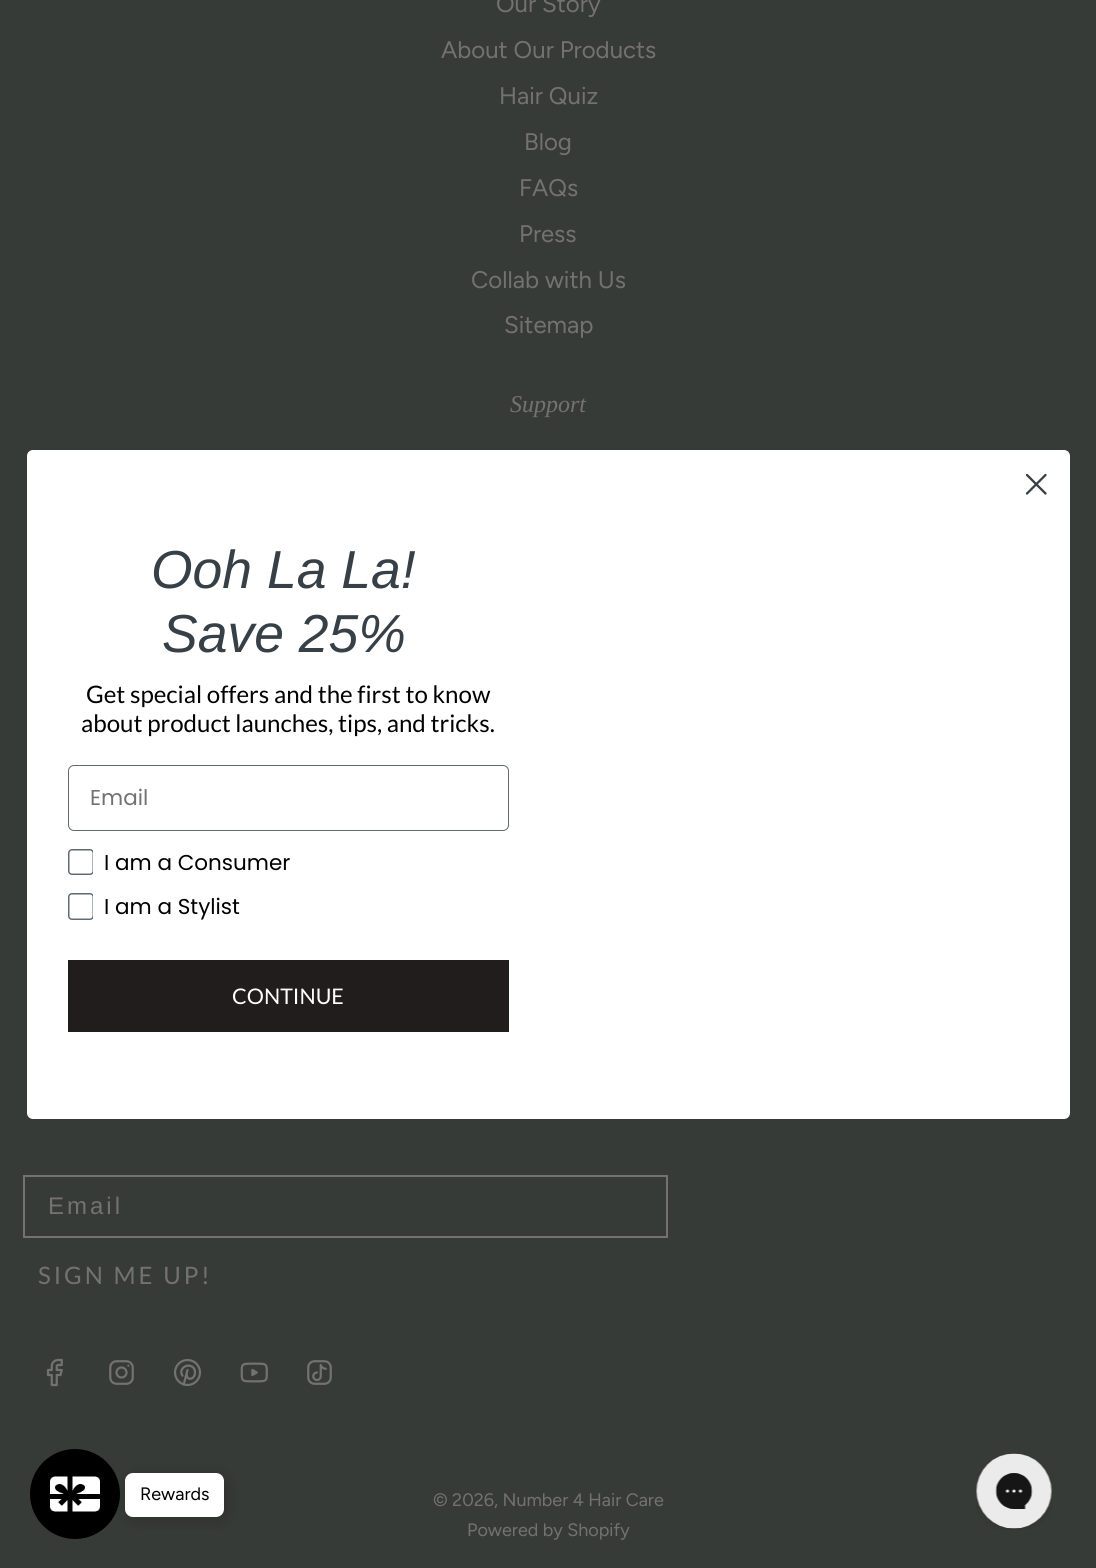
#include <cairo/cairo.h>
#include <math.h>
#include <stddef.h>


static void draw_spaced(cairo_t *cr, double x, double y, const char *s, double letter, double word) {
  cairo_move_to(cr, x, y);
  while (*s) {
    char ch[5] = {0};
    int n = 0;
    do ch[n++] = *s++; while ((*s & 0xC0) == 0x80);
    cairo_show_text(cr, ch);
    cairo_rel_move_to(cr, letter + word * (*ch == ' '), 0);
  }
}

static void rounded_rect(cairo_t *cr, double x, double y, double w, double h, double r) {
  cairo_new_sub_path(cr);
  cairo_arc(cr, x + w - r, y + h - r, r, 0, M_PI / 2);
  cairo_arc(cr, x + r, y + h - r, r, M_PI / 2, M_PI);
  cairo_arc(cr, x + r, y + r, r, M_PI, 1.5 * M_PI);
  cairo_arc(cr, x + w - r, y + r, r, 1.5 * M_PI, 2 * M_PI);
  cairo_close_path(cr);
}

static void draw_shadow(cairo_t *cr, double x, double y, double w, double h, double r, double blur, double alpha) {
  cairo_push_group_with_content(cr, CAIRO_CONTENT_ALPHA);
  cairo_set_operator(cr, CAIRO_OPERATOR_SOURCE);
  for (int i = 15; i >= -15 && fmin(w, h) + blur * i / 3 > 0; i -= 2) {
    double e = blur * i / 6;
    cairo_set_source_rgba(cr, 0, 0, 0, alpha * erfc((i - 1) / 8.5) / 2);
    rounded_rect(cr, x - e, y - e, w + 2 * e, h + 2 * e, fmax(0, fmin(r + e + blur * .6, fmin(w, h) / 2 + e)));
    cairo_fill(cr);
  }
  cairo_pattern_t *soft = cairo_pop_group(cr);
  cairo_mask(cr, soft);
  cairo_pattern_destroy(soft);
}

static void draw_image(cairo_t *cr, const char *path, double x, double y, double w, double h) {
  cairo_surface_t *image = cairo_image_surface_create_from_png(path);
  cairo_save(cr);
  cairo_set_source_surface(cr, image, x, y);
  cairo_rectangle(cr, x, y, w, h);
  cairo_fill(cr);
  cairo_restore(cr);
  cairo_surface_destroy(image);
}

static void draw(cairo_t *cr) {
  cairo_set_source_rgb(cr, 55 / 255.0, 59 / 255.0, 55 / 255.0);
  cairo_paint(cr);
  cairo_rectangle(cr, 24, 1176, 643, 61);
  cairo_set_source_rgb(cr, 114 / 255.0, 114 / 255.0, 114 / 255.0);
  cairo_stroke(cr);
  draw_image(cr, "images/1.png", 46, 1358, 17, 29);
  draw_image(cr, "images/2.png", 109, 1360, 25, 25);
  draw_image(cr, "images/3.png", 173, 1358, 29, 29);
  draw_image(cr, "images/4.png", 240, 1362, 28, 21);
  draw_image(cr, "images/5.png", 307, 1360, 25, 25);
  cairo_set_source_rgb(cr, 1, 1, 1);
  rounded_rect(cr, 27, 450, 1043, 669, 6);
  cairo_fill(cr);
  cairo_new_path(cr);
  cairo_move_to(cr, 1027, 475);
  cairo_line_to(cr, 1045.5, 493.5);
  cairo_move_to(cr, 1027, 493.5);
  cairo_line_to(cr, 1045.5, 475);
  cairo_close_path(cr);
  cairo_set_source_rgb(cr, 55 / 255.0, 63 / 255.0, 71 / 255.0);
  cairo_set_line_width(cr, 2.3);
  cairo_set_line_cap(cr, CAIRO_LINE_CAP_ROUND);
  cairo_set_line_join(cr, CAIRO_LINE_JOIN_ROUND);
  cairo_stroke(cr);
  rounded_rect(cr, 68.5, 765.5, 440, 65, 5.5);
  cairo_set_source_rgb(cr, 96 / 255.0, 106 / 255.0, 114 / 255.0);
  cairo_set_line_width(cr, 1);
  cairo_set_line_cap(cr, CAIRO_LINE_CAP_BUTT);
  cairo_set_line_join(cr, CAIRO_LINE_JOIN_MITER);
  cairo_stroke(cr);
  cairo_save(cr);
  cairo_rectangle(cr, 68, 848, 25, 27);
  cairo_clip(cr);
  rounded_rect(cr, 68.75, 849.75, 24.5, 24.5, 3.25);
  cairo_set_line_width(cr, 1.5);
  cairo_stroke(cr);
  cairo_restore(cr);
  cairo_save(cr);
  cairo_rectangle(cr, 68, 893, 25, 27);
  cairo_clip(cr);
  rounded_rect(cr, 68.75, 893.75, 24.5, 25.5, 3.25);
  cairo_set_line_width(cr, 1.5);
  cairo_stroke(cr);
  cairo_restore(cr);
  cairo_set_source_rgb(cr, 33 / 255.0, 29 / 255.0, 28 / 255.0);
  cairo_rectangle(cr, 68, 960, 441, 72);
  cairo_fill(cr);
  cairo_set_source_rgb(cr, 0, 0, 0);
  cairo_arc(cr, 75, 1494, 45, 0, 2 * M_PI);
  cairo_fill(cr);
  draw_image(cr, "images/6.png", 50, 1476, 50, 36);
  cairo_set_source_rgb(cr, 0, 0, 0);
  draw_shadow(cr, 128, 1476, 99, 44, 8, 7.5, 0.2);
  cairo_set_source_rgb(cr, 1, 1, 1);
  rounded_rect(cr, 125, 1473, 99, 44, 8);
  cairo_fill(cr);
  draw_image(cr, "images/7.png", 976, 1453, 76, 77);
  cairo_select_font_face(cr, "Figtree", CAIRO_FONT_SLANT_NORMAL, CAIRO_FONT_WEIGHT_NORMAL);
  cairo_set_font_size(cr, 24);
  cairo_set_source_rgb(cr, 114 / 255.0, 114 / 255.0, 114 / 255.0);
  cairo_move_to(cr, 496, 12);
  cairo_show_text(cr, "Our Story");
  cairo_move_to(cr, 441, 58);
  cairo_show_text(cr, "About Our Products");
  cairo_move_to(cr, 499, 104);
  cairo_show_text(cr, "Hair Quiz");
  cairo_move_to(cr, 524, 150);
  cairo_show_text(cr, "Blog");
  cairo_move_to(cr, 519, 196);
  cairo_show_text(cr, "FAQs");
  cairo_move_to(cr, 519, 242);
  cairo_show_text(cr, "Press");
  cairo_move_to(cr, 471, 288);
  cairo_show_text(cr, "Collab with Us");
  cairo_move_to(cr, 504, 333);
  cairo_show_text(cr, "Sitemap");
  cairo_select_font_face(cr, "Liberation Serif", CAIRO_FONT_SLANT_ITALIC, CAIRO_FONT_WEIGHT_NORMAL);
  cairo_move_to(cr, 510, 412);
  cairo_show_text(cr, "Support");
  cairo_select_font_face(cr, "Liberation Sans", CAIRO_FONT_SLANT_NORMAL, CAIRO_FONT_WEIGHT_NORMAL);
  draw_spaced(cr, 48, 1214, "Email", 3, 0);
  cairo_select_font_face(cr, "Lato", CAIRO_FONT_SLANT_NORMAL, CAIRO_FONT_WEIGHT_NORMAL);
  draw_spaced(cr, 38, 1284, "SIGN ME UP!", 3, 0);
  cairo_select_font_face(cr, "Figtree", CAIRO_FONT_SLANT_NORMAL, CAIRO_FONT_WEIGHT_NORMAL);
  cairo_set_font_size(cr, 18);
  cairo_move_to(cr, 433, 1506);
  cairo_show_text(cr, "© 2026, Number 4 Hair Care");
  cairo_move_to(cr, 467, 1536);
  cairo_show_text(cr, "Powered by Shopify");
  cairo_select_font_face(cr, "Liberation Sans", CAIRO_FONT_SLANT_ITALIC, CAIRO_FONT_WEIGHT_NORMAL);
  cairo_set_font_size(cr, 53.5);
  cairo_set_source_rgb(cr, 55 / 255.0, 63 / 255.0, 71 / 255.0);
  cairo_move_to(cr, 151, 588);
  cairo_show_text(cr, "Ooh La La!");
  cairo_move_to(cr, 162, 652);
  cairo_show_text(cr, "Save 25%");
  cairo_select_font_face(cr, "Lato", CAIRO_FONT_SLANT_NORMAL, CAIRO_FONT_WEIGHT_NORMAL);
  cairo_set_font_size(cr, 24.1);
  cairo_set_source_rgb(cr, 0, 0, 0);
  cairo_move_to(cr, 86, 703);
  cairo_show_text(cr, "Get special offers and the first to know");
  cairo_move_to(cr, 81, 732);
  cairo_show_text(cr, "about product launches, tips, and tricks.");
  cairo_select_font_face(cr, "Poppins", CAIRO_FONT_SLANT_NORMAL, CAIRO_FONT_WEIGHT_NORMAL);
  cairo_set_font_size(cr, 21.5);
  cairo_set_source_rgb(cr, 114 / 255.0, 114 / 255.0, 114 / 255.0);
  cairo_move_to(cr, 90, 805);
  cairo_show_text(cr, "Email");
  cairo_set_source_rgb(cr, 0, 0, 0);
  cairo_move_to(cr, 104, 870);
  cairo_show_text(cr, "I am a Consumer");
  cairo_move_to(cr, 104, 914);
  cairo_show_text(cr, "I am a Stylist");
  cairo_select_font_face(cr, "Lato", CAIRO_FONT_SLANT_NORMAL, CAIRO_FONT_WEIGHT_NORMAL);
  cairo_set_source_rgb(cr, 1, 1, 1);
  cairo_move_to(cr, 232, 1004);
  cairo_show_text(cr, "CONTINUE");
  cairo_select_font_face(cr, "Figtree", CAIRO_FONT_SLANT_NORMAL, CAIRO_FONT_WEIGHT_NORMAL);
  cairo_set_font_size(cr, 18);
  cairo_set_source_rgb(cr, 0, 0, 0);
  cairo_move_to(cr, 140, 1500);
  cairo_show_text(cr, "Rewards");
}

int main(void) {
  cairo_surface_t *surface = cairo_image_surface_create(CAIRO_FORMAT_RGB24, 1096, 1568);
  cairo_t *cr = cairo_create(surface);
  cairo_font_options_t *options = cairo_font_options_create();
  cairo_font_options_set_hint_metrics(options, CAIRO_HINT_METRICS_OFF);
  cairo_font_options_set_hint_style(options, CAIRO_HINT_STYLE_NONE);
  cairo_set_font_options(cr, options);
  cairo_set_miter_limit(cr, 4);
  draw(cr);
  cairo_surface_write_to_png(surface, "out.png");
  cairo_font_options_destroy(options);
  cairo_destroy(cr);
  cairo_surface_destroy(surface);
  return 0;
}
